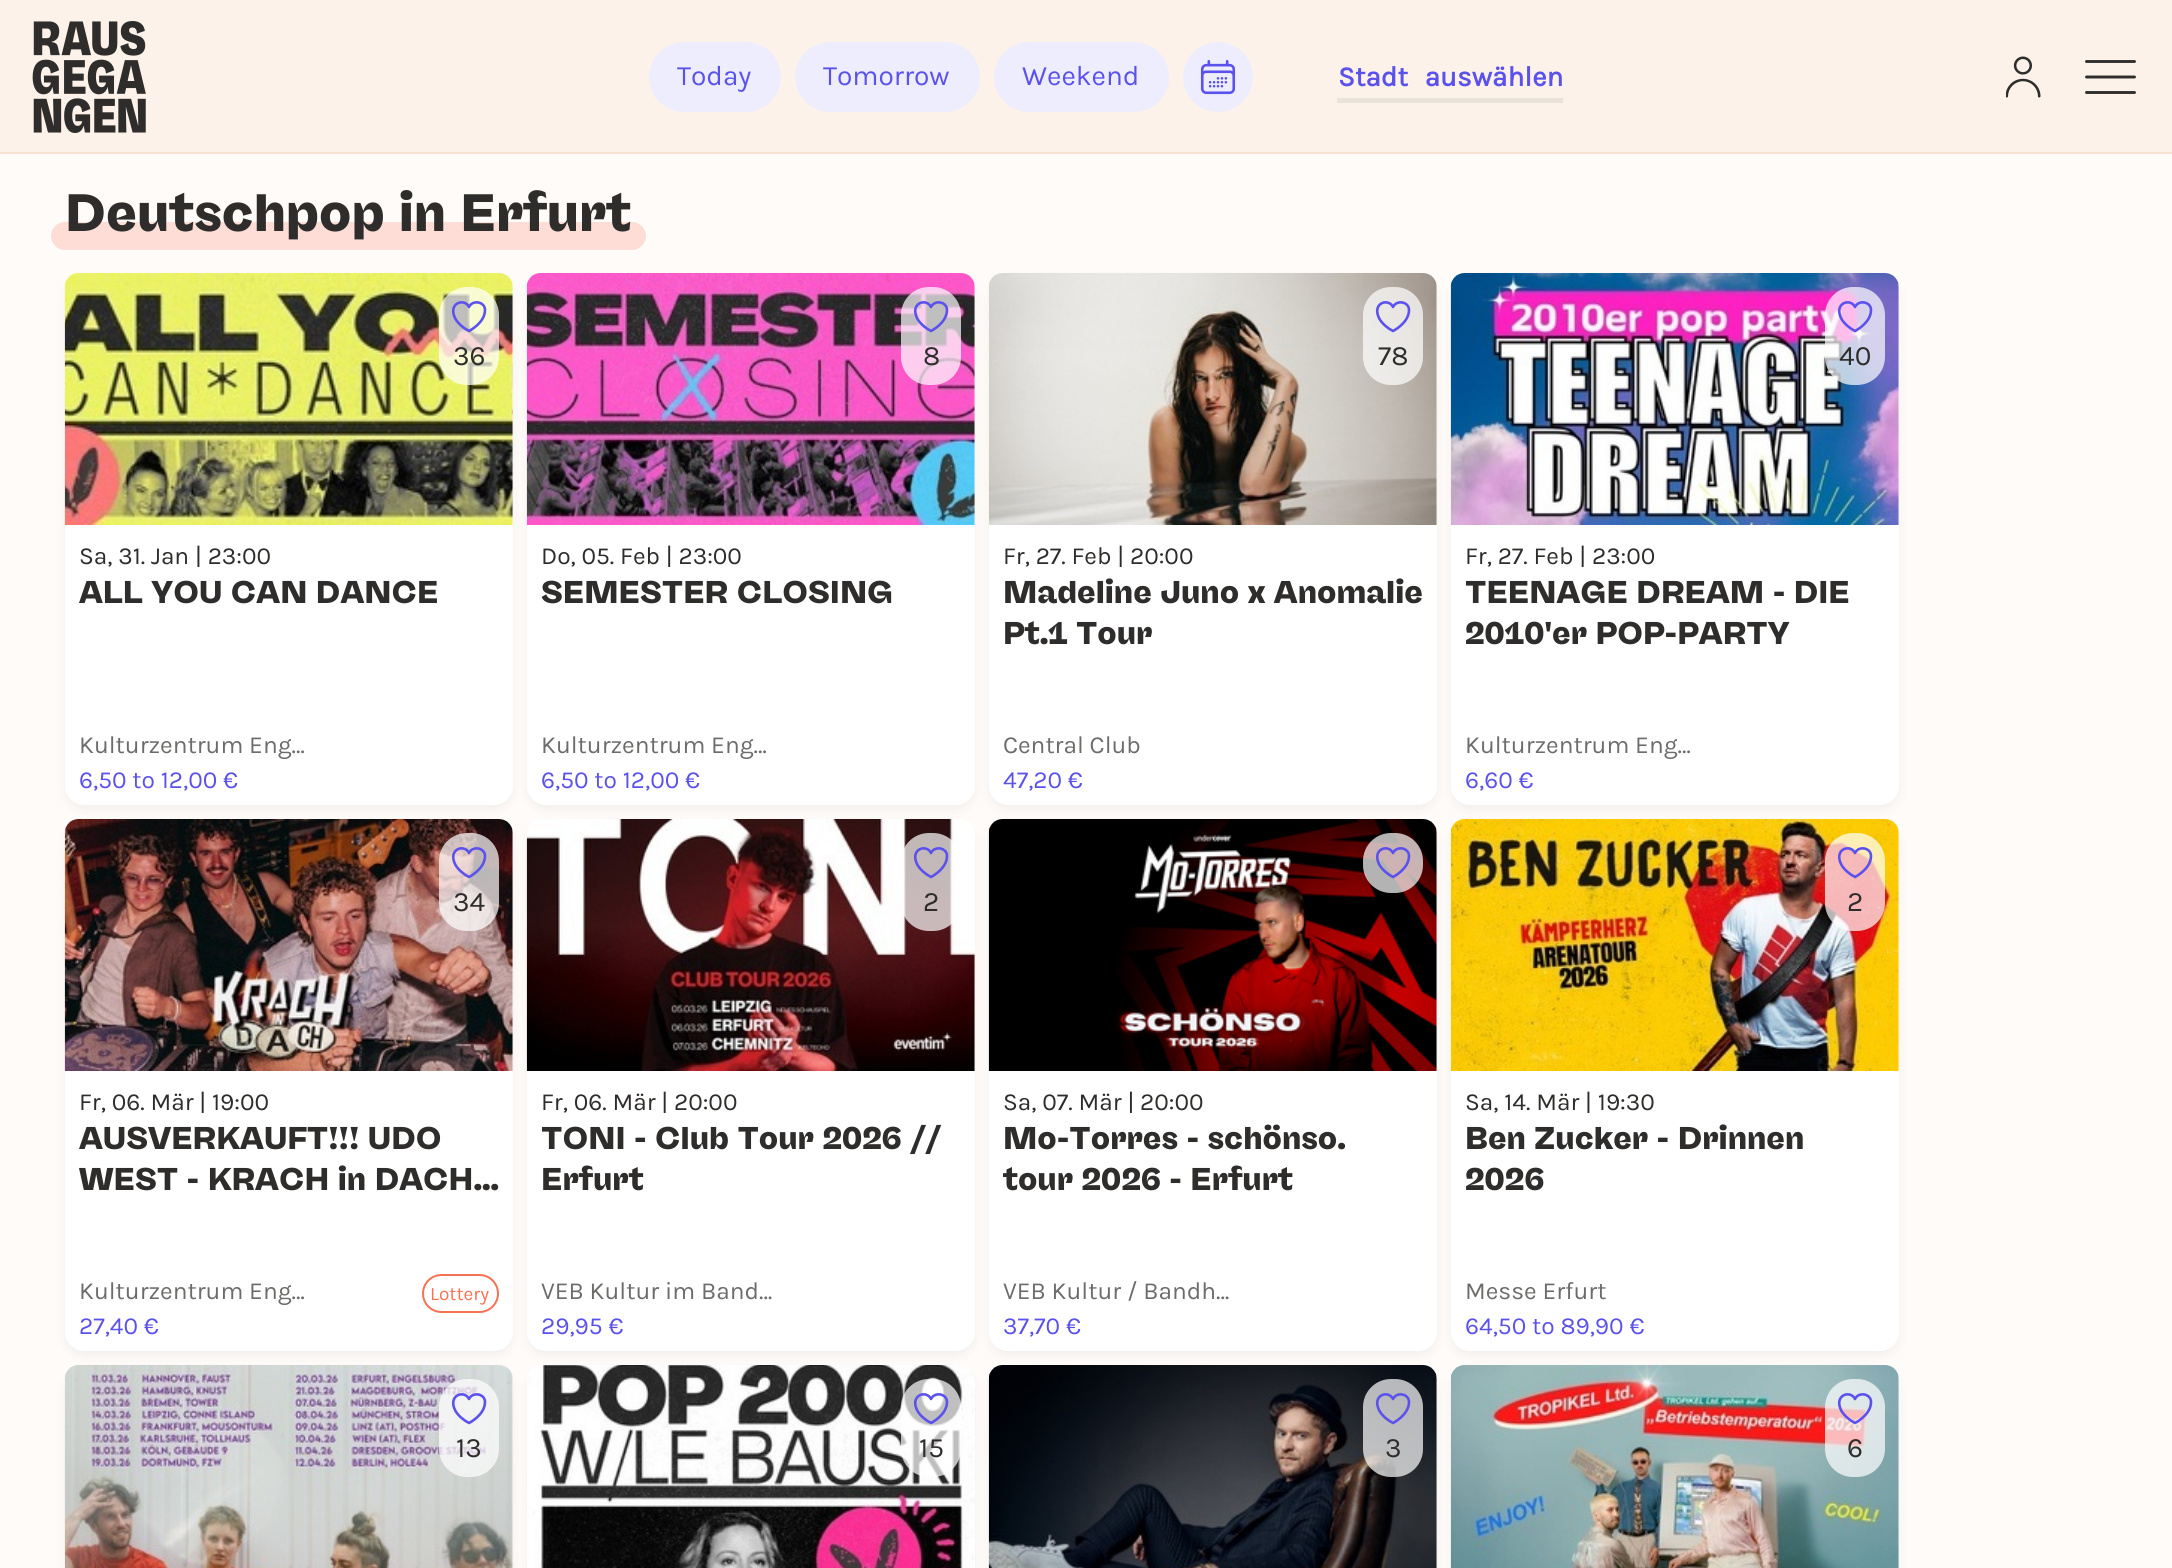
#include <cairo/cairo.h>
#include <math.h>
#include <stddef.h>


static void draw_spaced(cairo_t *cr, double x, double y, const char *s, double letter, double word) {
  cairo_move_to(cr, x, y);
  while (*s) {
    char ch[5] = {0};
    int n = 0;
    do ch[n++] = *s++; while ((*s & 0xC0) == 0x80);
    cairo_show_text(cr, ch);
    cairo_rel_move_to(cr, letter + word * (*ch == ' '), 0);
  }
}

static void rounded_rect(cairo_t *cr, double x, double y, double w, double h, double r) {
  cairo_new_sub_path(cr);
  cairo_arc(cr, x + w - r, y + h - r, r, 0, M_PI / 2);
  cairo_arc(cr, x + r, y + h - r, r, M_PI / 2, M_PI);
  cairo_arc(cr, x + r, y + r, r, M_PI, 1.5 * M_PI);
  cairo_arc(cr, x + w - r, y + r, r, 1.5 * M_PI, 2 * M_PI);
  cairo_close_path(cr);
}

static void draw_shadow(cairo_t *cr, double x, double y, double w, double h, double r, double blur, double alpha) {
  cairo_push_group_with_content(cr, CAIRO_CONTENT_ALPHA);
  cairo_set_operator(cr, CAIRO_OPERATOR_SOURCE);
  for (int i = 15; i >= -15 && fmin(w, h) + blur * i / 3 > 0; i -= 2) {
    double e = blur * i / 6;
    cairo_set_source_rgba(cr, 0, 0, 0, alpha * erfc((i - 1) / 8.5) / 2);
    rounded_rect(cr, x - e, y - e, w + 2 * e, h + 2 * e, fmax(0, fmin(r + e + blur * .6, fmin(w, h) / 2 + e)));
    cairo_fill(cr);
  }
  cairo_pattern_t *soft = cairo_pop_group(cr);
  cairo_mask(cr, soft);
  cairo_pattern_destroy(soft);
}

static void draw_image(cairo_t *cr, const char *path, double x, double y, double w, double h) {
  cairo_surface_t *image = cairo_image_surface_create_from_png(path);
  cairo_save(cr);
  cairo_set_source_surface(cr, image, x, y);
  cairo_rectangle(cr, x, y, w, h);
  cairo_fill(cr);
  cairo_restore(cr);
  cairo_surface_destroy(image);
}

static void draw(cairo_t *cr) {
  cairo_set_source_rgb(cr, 254 / 255.0, 251 / 255.0, 248 / 255.0);
  cairo_paint(cr);
  cairo_set_source_rgb(cr, 252 / 255.0, 242 / 255.0, 233 / 255.0);
  cairo_rectangle(cr, 0, 0, 2172, 152);
  cairo_fill(cr);
  cairo_set_source_rgb(cr, 248 / 255.0, 227 / 255.0, 208 / 255.0);
  cairo_rectangle(cr, 0, 152, 2172, 2);
  cairo_fill(cr);
  draw_image(cr, "images/1.png", 32, 21, 114, 112);
  cairo_set_source_rgb(cr, 238 / 255.0, 237 / 255.0, 253 / 255.0);
  rounded_rect(cr, 649, 42, 132, 70, 35);
  cairo_fill(cr);
  rounded_rect(cr, 795, 42, 185, 70, 35);
  cairo_fill(cr);
  rounded_rect(cr, 994, 42, 175, 70, 35);
  cairo_fill(cr);
  cairo_arc(cr, 1218, 77, 35, 0, 2 * M_PI);
  cairo_fill(cr);
  draw_image(cr, "images/2.png", 1200, 60, 36, 35);
  cairo_set_source_rgb(cr, 234 / 255.0, 227 / 255.0, 218 / 255.0);
  cairo_rectangle(cr, 1337, 98, 226, 5);
  cairo_fill(cr);
  draw_image(cr, "images/3.png", 2006, 56, 35, 42);
  cairo_new_path(cr);
  cairo_move_to(cr, 2086.5, 61.5);
  cairo_line_to(cr, 2134.5, 61.5);
  cairo_move_to(cr, 2086.5, 77);
  cairo_line_to(cr, 2134.5, 77);
  cairo_move_to(cr, 2086.5, 92.5);
  cairo_line_to(cr, 2134.5, 92.5);
  cairo_set_source_rgb(cr, 46 / 255.0, 45 / 255.0, 43 / 255.0);
  cairo_set_line_width(cr, 2.9);
  cairo_set_line_cap(cr, CAIRO_LINE_CAP_ROUND);
  cairo_set_line_join(cr, CAIRO_LINE_JOIN_ROUND);
  cairo_stroke(cr);
  cairo_set_source_rgb(cr, 253 / 255.0, 221 / 255.0, 213 / 255.0);
  rounded_rect(cr, 51, 222, 595, 28, 14);
  cairo_fill(cr);
  cairo_set_source_rgb(cr, 0, 0, 0);
  draw_shadow(cr, 65, 278, 448, 532, 19, 5, 0.05);
  cairo_set_source_rgb(cr, 1, 1, 1);
  rounded_rect(cr, 65, 273, 448, 532, 19);
  cairo_fill(cr);
  draw_image(cr, "images/4.png", 64, 273, 449, 252);
  cairo_set_source_rgba(cr, 1, 1, 1, 0.7);
  rounded_rect(cr, 439, 287, 60, 98, 28);
  cairo_fill(cr);
  cairo_new_path(cr);
  cairo_move_to(cr, 485, 310);
  cairo_curve_to(cr, 485, 301.5, 472.5, 299.5, 469, 307);
  cairo_curve_to(cr, 464.5, 297.5, 447, 303, 455.5, 319);
  cairo_curve_to(cr, 458.5, 324, 464, 328.5, 469, 331);
  cairo_curve_to(cr, 469, 331, 485, 323, 485, 310);
  cairo_close_path(cr);
  cairo_set_source_rgb(cr, 91 / 255.0, 81 / 255.0, 236 / 255.0);
  cairo_set_line_width(cr, 2.6);
  cairo_stroke(cr);
  cairo_set_source_rgb(cr, 0, 0, 0);
  draw_shadow(cr, 527, 278, 448, 532, 19, 5, 0.05);
  cairo_set_source_rgb(cr, 1, 1, 1);
  rounded_rect(cr, 527, 273, 448, 532, 19);
  cairo_fill(cr);
  draw_image(cr, "images/5.png", 526, 273, 449, 252);
  cairo_set_source_rgba(cr, 1, 1, 1, 0.7);
  rounded_rect(cr, 901, 287, 60, 98, 28);
  cairo_fill(cr);
  cairo_new_path(cr);
  cairo_move_to(cr, 947, 310);
  cairo_curve_to(cr, 947, 301.5, 934.5, 299.5, 931, 307);
  cairo_curve_to(cr, 926.5, 297.5, 909, 303, 917.5, 319);
  cairo_curve_to(cr, 920.5, 324, 926, 328.5, 931, 331);
  cairo_curve_to(cr, 931, 331, 947, 323, 947, 310);
  cairo_close_path(cr);
  cairo_set_source_rgb(cr, 91 / 255.0, 81 / 255.0, 236 / 255.0);
  cairo_stroke(cr);
  cairo_set_source_rgb(cr, 0, 0, 0);
  draw_shadow(cr, 989, 278, 448, 532, 19, 5, 0.05);
  cairo_set_source_rgb(cr, 1, 1, 1);
  rounded_rect(cr, 989, 273, 448, 532, 19);
  cairo_fill(cr);
  draw_image(cr, "images/6.png", 989, 273, 448, 252);
  cairo_set_source_rgba(cr, 1, 1, 1, 0.7);
  rounded_rect(cr, 1363, 287, 60, 98, 28);
  cairo_fill(cr);
  cairo_new_path(cr);
  cairo_move_to(cr, 1409, 310);
  cairo_curve_to(cr, 1409, 301.5, 1396.5, 299.5, 1393, 307);
  cairo_curve_to(cr, 1388.5, 297.5, 1371, 303, 1379.5, 319);
  cairo_curve_to(cr, 1382.5, 324, 1388, 328.5, 1393, 331);
  cairo_curve_to(cr, 1393, 331, 1409, 323, 1409, 310);
  cairo_close_path(cr);
  cairo_set_source_rgb(cr, 91 / 255.0, 81 / 255.0, 236 / 255.0);
  cairo_stroke(cr);
  cairo_set_source_rgb(cr, 0, 0, 0);
  draw_shadow(cr, 1451, 278, 448, 532, 19, 5, 0.05);
  cairo_set_source_rgb(cr, 1, 1, 1);
  rounded_rect(cr, 1451, 273, 448, 532, 19);
  cairo_fill(cr);
  draw_image(cr, "images/7.png", 1450, 273, 449, 252);
  cairo_set_source_rgba(cr, 1, 1, 1, 0.7);
  rounded_rect(cr, 1825, 287, 60, 98, 28);
  cairo_fill(cr);
  cairo_new_path(cr);
  cairo_move_to(cr, 1871, 310);
  cairo_curve_to(cr, 1871, 301.5, 1858.5, 299.5, 1855, 307);
  cairo_curve_to(cr, 1850.5, 297.5, 1833, 303, 1841.5, 319);
  cairo_curve_to(cr, 1844.5, 324, 1850, 328.5, 1855, 331);
  cairo_curve_to(cr, 1855, 331, 1871, 323, 1871, 310);
  cairo_close_path(cr);
  cairo_set_source_rgb(cr, 91 / 255.0, 81 / 255.0, 236 / 255.0);
  cairo_stroke(cr);
  cairo_set_source_rgb(cr, 0, 0, 0);
  draw_shadow(cr, 65, 824, 448, 532, 19, 5, 0.05);
  cairo_set_source_rgb(cr, 1, 1, 1);
  rounded_rect(cr, 65, 819, 448, 532, 19);
  cairo_fill(cr);
  draw_image(cr, "images/8.png", 64, 819, 449, 252);
  cairo_set_source_rgba(cr, 1, 1, 1, 0.7);
  rounded_rect(cr, 439, 833, 60, 98, 28);
  cairo_fill(cr);
  cairo_new_path(cr);
  cairo_move_to(cr, 485, 856);
  cairo_curve_to(cr, 485, 847.5, 472.5, 845.5, 469, 853);
  cairo_curve_to(cr, 464.5, 843.5, 447, 849, 455.5, 865);
  cairo_curve_to(cr, 458.5, 870, 464, 874.5, 469, 877);
  cairo_curve_to(cr, 469, 877, 485, 869, 485, 856);
  cairo_close_path(cr);
  cairo_set_source_rgb(cr, 91 / 255.0, 81 / 255.0, 236 / 255.0);
  cairo_stroke(cr);
  rounded_rect(cr, 423, 1275, 75, 37, 18.5);
  cairo_set_source_rgb(cr, 247 / 255.0, 114 / 255.0, 84 / 255.0);
  cairo_set_line_width(cr, 2);
  cairo_set_line_cap(cr, CAIRO_LINE_CAP_BUTT);
  cairo_set_line_join(cr, CAIRO_LINE_JOIN_MITER);
  cairo_stroke(cr);
  cairo_set_source_rgb(cr, 0, 0, 0);
  draw_shadow(cr, 527, 824, 448, 532, 19, 5, 0.05);
  cairo_set_source_rgb(cr, 1, 1, 1);
  rounded_rect(cr, 527, 819, 448, 532, 19);
  cairo_fill(cr);
  draw_image(cr, "images/9.png", 526, 819, 449, 252);
  cairo_set_source_rgba(cr, 1, 1, 1, 0.7);
  rounded_rect(cr, 901, 833, 60, 98, 28);
  cairo_fill(cr);
  cairo_new_path(cr);
  cairo_move_to(cr, 947, 856);
  cairo_curve_to(cr, 947, 847.5, 934.5, 845.5, 931, 853);
  cairo_curve_to(cr, 926.5, 843.5, 909, 849, 917.5, 865);
  cairo_curve_to(cr, 920.5, 870, 926, 874.5, 931, 877);
  cairo_curve_to(cr, 931, 877, 947, 869, 947, 856);
  cairo_close_path(cr);
  cairo_set_source_rgb(cr, 91 / 255.0, 81 / 255.0, 236 / 255.0);
  cairo_set_line_width(cr, 2.6);
  cairo_set_line_cap(cr, CAIRO_LINE_CAP_ROUND);
  cairo_set_line_join(cr, CAIRO_LINE_JOIN_ROUND);
  cairo_stroke(cr);
  cairo_set_source_rgb(cr, 0, 0, 0);
  draw_shadow(cr, 989, 824, 448, 532, 19, 5, 0.05);
  cairo_set_source_rgb(cr, 1, 1, 1);
  rounded_rect(cr, 989, 819, 448, 532, 19);
  cairo_fill(cr);
  draw_image(cr, "images/10.png", 988, 819, 449, 252);
  cairo_set_source_rgba(cr, 1, 1, 1, 0.7);
  rounded_rect(cr, 1363, 833, 60, 60, 28);
  cairo_fill(cr);
  cairo_new_path(cr);
  cairo_move_to(cr, 1409, 856);
  cairo_curve_to(cr, 1409, 847.5, 1396.5, 845.5, 1393, 853);
  cairo_curve_to(cr, 1388.5, 843.5, 1371, 849, 1379.5, 865);
  cairo_curve_to(cr, 1382.5, 870, 1388, 874.5, 1393, 877);
  cairo_curve_to(cr, 1393, 877, 1409, 869, 1409, 856);
  cairo_close_path(cr);
  cairo_set_source_rgb(cr, 91 / 255.0, 81 / 255.0, 236 / 255.0);
  cairo_stroke(cr);
  cairo_set_source_rgb(cr, 0, 0, 0);
  draw_shadow(cr, 1451, 824, 448, 532, 19, 5, 0.05);
  cairo_set_source_rgb(cr, 1, 1, 1);
  rounded_rect(cr, 1451, 819, 448, 532, 19);
  cairo_fill(cr);
  draw_image(cr, "images/11.png", 1450, 819, 449, 252);
  cairo_set_source_rgba(cr, 1, 1, 1, 0.7);
  rounded_rect(cr, 1825, 833, 60, 98, 28);
  cairo_fill(cr);
  cairo_new_path(cr);
  cairo_move_to(cr, 1871, 856);
  cairo_curve_to(cr, 1871, 847.5, 1858.5, 845.5, 1855, 853);
  cairo_curve_to(cr, 1850.5, 843.5, 1833, 849, 1841.5, 865);
  cairo_curve_to(cr, 1844.5, 870, 1850, 874.5, 1855, 877);
  cairo_curve_to(cr, 1855, 877, 1871, 869, 1871, 856);
  cairo_close_path(cr);
  cairo_set_source_rgb(cr, 91 / 255.0, 81 / 255.0, 236 / 255.0);
  cairo_stroke(cr);
  cairo_set_source_rgb(cr, 0, 0, 0);
  draw_shadow(cr, 65, 1370, 448, 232, 19, 5, 0.05);
  cairo_set_source_rgb(cr, 1, 1, 1);
  rounded_rect(cr, 65, 1365, 448, 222, 19);
  cairo_fill(cr);
  draw_image(cr, "images/12.png", 64, 1365, 449, 203);
  cairo_set_source_rgba(cr, 1, 1, 1, 0.7);
  rounded_rect(cr, 439, 1379, 60, 98, 28);
  cairo_fill(cr);
  cairo_new_path(cr);
  cairo_move_to(cr, 485, 1402);
  cairo_curve_to(cr, 485, 1393.5, 472.5, 1391.5, 469, 1399);
  cairo_curve_to(cr, 464.5, 1389.5, 447, 1395, 455.5, 1411);
  cairo_curve_to(cr, 458.5, 1416, 464, 1420.5, 469, 1423);
  cairo_curve_to(cr, 469, 1423, 485, 1415, 485, 1402);
  cairo_close_path(cr);
  cairo_set_source_rgb(cr, 91 / 255.0, 81 / 255.0, 236 / 255.0);
  cairo_stroke(cr);
  cairo_set_source_rgb(cr, 0, 0, 0);
  draw_shadow(cr, 527, 1370, 448, 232, 19, 5, 0.05);
  cairo_set_source_rgb(cr, 1, 1, 1);
  rounded_rect(cr, 527, 1365, 448, 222, 19);
  cairo_fill(cr);
  draw_image(cr, "images/13.png", 527, 1365, 448, 203);
  cairo_set_source_rgba(cr, 1, 1, 1, 0.7);
  rounded_rect(cr, 901, 1379, 60, 98, 28);
  cairo_fill(cr);
  cairo_new_path(cr);
  cairo_move_to(cr, 947, 1402);
  cairo_curve_to(cr, 947, 1393.5, 934.5, 1391.5, 931, 1399);
  cairo_curve_to(cr, 926.5, 1389.5, 909, 1395, 917.5, 1411);
  cairo_curve_to(cr, 920.5, 1416, 926, 1420.5, 931, 1423);
  cairo_curve_to(cr, 931, 1423, 947, 1415, 947, 1402);
  cairo_close_path(cr);
  cairo_set_source_rgb(cr, 91 / 255.0, 81 / 255.0, 236 / 255.0);
  cairo_stroke(cr);
  cairo_set_source_rgb(cr, 0, 0, 0);
  draw_shadow(cr, 989, 1370, 448, 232, 19, 5, 0.05);
  cairo_set_source_rgb(cr, 1, 1, 1);
  rounded_rect(cr, 989, 1365, 448, 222, 19);
  cairo_fill(cr);
  draw_image(cr, "images/14.png", 988, 1365, 449, 203);
  cairo_set_source_rgba(cr, 1, 1, 1, 0.7);
  rounded_rect(cr, 1363, 1379, 60, 98, 28);
  cairo_fill(cr);
  cairo_new_path(cr);
  cairo_move_to(cr, 1409, 1402);
  cairo_curve_to(cr, 1409, 1393.5, 1396.5, 1391.5, 1393, 1399);
  cairo_curve_to(cr, 1388.5, 1389.5, 1371, 1395, 1379.5, 1411);
  cairo_curve_to(cr, 1382.5, 1416, 1388, 1420.5, 1393, 1423);
  cairo_curve_to(cr, 1393, 1423, 1409, 1415, 1409, 1402);
  cairo_close_path(cr);
  cairo_set_source_rgb(cr, 91 / 255.0, 81 / 255.0, 236 / 255.0);
  cairo_stroke(cr);
  cairo_set_source_rgb(cr, 0, 0, 0);
  draw_shadow(cr, 1451, 1370, 448, 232, 19, 5, 0.05);
  cairo_set_source_rgb(cr, 1, 1, 1);
  rounded_rect(cr, 1451, 1365, 448, 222, 19);
  cairo_fill(cr);
  draw_image(cr, "images/15.png", 1450, 1365, 449, 203);
  cairo_set_source_rgba(cr, 1, 1, 1, 0.7);
  rounded_rect(cr, 1825, 1379, 60, 98, 28);
  cairo_fill(cr);
  cairo_new_path(cr);
  cairo_move_to(cr, 1871, 1402);
  cairo_curve_to(cr, 1871, 1393.5, 1858.5, 1391.5, 1855, 1399);
  cairo_curve_to(cr, 1850.5, 1389.5, 1833, 1395, 1841.5, 1411);
  cairo_curve_to(cr, 1844.5, 1416, 1850, 1420.5, 1855, 1423);
  cairo_curve_to(cr, 1855, 1423, 1871, 1415, 1871, 1402);
  cairo_close_path(cr);
  cairo_set_source_rgb(cr, 91 / 255.0, 81 / 255.0, 236 / 255.0);
  cairo_stroke(cr);
  cairo_select_font_face(cr, "Karla", CAIRO_FONT_SLANT_NORMAL, CAIRO_FONT_WEIGHT_NORMAL);
  cairo_set_font_size(cr, 28);
  cairo_move_to(cr, 677, 85);
  cairo_show_text(cr, "Today");
  cairo_move_to(cr, 823, 85);
  cairo_show_text(cr, "Tomorrow");
  cairo_move_to(cr, 1022, 85);
  cairo_show_text(cr, "Weekend");
  cairo_select_font_face(cr, "Karla", CAIRO_FONT_SLANT_NORMAL, CAIRO_FONT_WEIGHT_BOLD);
  draw_spaced(cr, 1338, 86, "Stadt auswählen", 0, 10);
  cairo_select_font_face(cr, "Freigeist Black", CAIRO_FONT_SLANT_NORMAL, CAIRO_FONT_WEIGHT_NORMAL);
  cairo_set_font_size(cr, 52.5);
  cairo_set_source_rgb(cr, 46 / 255.0, 45 / 255.0, 43 / 255.0);
  cairo_move_to(cr, 65, 231);
  cairo_show_text(cr, "Deutschpop in Erfurt");
  cairo_select_font_face(cr, "Karla", CAIRO_FONT_SLANT_NORMAL, CAIRO_FONT_WEIGHT_NORMAL);
  cairo_set_font_size(cr, 28);
  cairo_move_to(cr, 453, 365);
  cairo_show_text(cr, "36");
  cairo_set_font_size(cr, 24.5);
  cairo_move_to(cr, 79, 564);
  cairo_show_text(cr, "Sa, 31. Jan | 23:00");
  cairo_select_font_face(cr, "Freigeist Black", CAIRO_FONT_SLANT_NORMAL, CAIRO_FONT_WEIGHT_NORMAL);
  cairo_set_font_size(cr, 31.5);
  cairo_move_to(cr, 79, 603);
  cairo_show_text(cr, "ALL YOU CAN DANCE");
  cairo_select_font_face(cr, "Karla", CAIRO_FONT_SLANT_NORMAL, CAIRO_FONT_WEIGHT_NORMAL);
  cairo_set_font_size(cr, 24.5);
  cairo_set_source_rgb(cr, 109 / 255.0, 108 / 255.0, 107 / 255.0);
  cairo_move_to(cr, 79, 753);
  cairo_show_text(cr, "Kulturzentrum Eng…");
  cairo_set_source_rgb(cr, 91 / 255.0, 81 / 255.0, 236 / 255.0);
  cairo_move_to(cr, 79, 788);
  cairo_show_text(cr, "6,50 to 12,00 €");
  cairo_set_font_size(cr, 28);
  cairo_set_source_rgb(cr, 46 / 255.0, 45 / 255.0, 43 / 255.0);
  cairo_move_to(cr, 923, 365);
  cairo_show_text(cr, "8");
  cairo_set_font_size(cr, 24.5);
  cairo_move_to(cr, 541, 564);
  cairo_show_text(cr, "Do, 05. Feb | 23:00");
  cairo_select_font_face(cr, "Freigeist Black", CAIRO_FONT_SLANT_NORMAL, CAIRO_FONT_WEIGHT_NORMAL);
  cairo_set_font_size(cr, 31.5);
  cairo_move_to(cr, 541, 603);
  cairo_show_text(cr, "SEMESTER CLOSING");
  cairo_select_font_face(cr, "Karla", CAIRO_FONT_SLANT_NORMAL, CAIRO_FONT_WEIGHT_NORMAL);
  cairo_set_font_size(cr, 24.5);
  cairo_set_source_rgb(cr, 109 / 255.0, 108 / 255.0, 107 / 255.0);
  cairo_move_to(cr, 541, 753);
  cairo_show_text(cr, "Kulturzentrum Eng…");
  cairo_set_source_rgb(cr, 91 / 255.0, 81 / 255.0, 236 / 255.0);
  cairo_move_to(cr, 541, 788);
  cairo_show_text(cr, "6,50 to 12,00 €");
  cairo_set_font_size(cr, 28);
  cairo_set_source_rgb(cr, 46 / 255.0, 45 / 255.0, 43 / 255.0);
  cairo_move_to(cr, 1378, 365);
  cairo_show_text(cr, "78");
  cairo_set_font_size(cr, 24.5);
  cairo_move_to(cr, 1003, 564);
  cairo_show_text(cr, "Fr, 27. Feb | 20:00");
  cairo_select_font_face(cr, "Freigeist Black", CAIRO_FONT_SLANT_NORMAL, CAIRO_FONT_WEIGHT_NORMAL);
  cairo_set_font_size(cr, 31.5);
  cairo_move_to(cr, 1003, 603);
  cairo_show_text(cr, "Madeline Juno x Anomalie");
  cairo_move_to(cr, 1003, 644);
  cairo_show_text(cr, "Pt.1 Tour");
  cairo_select_font_face(cr, "Karla", CAIRO_FONT_SLANT_NORMAL, CAIRO_FONT_WEIGHT_NORMAL);
  cairo_set_font_size(cr, 24.5);
  cairo_set_source_rgb(cr, 109 / 255.0, 108 / 255.0, 107 / 255.0);
  cairo_move_to(cr, 1003, 753);
  cairo_show_text(cr, "Central Club");
  cairo_set_source_rgb(cr, 91 / 255.0, 81 / 255.0, 236 / 255.0);
  cairo_move_to(cr, 1003, 788);
  cairo_show_text(cr, "47,20 €");
  cairo_set_font_size(cr, 28);
  cairo_set_source_rgb(cr, 46 / 255.0, 45 / 255.0, 43 / 255.0);
  cairo_move_to(cr, 1839, 365);
  cairo_show_text(cr, "40");
  cairo_set_font_size(cr, 24.5);
  cairo_move_to(cr, 1465, 564);
  cairo_show_text(cr, "Fr, 27. Feb | 23:00");
  cairo_select_font_face(cr, "Freigeist Black", CAIRO_FONT_SLANT_NORMAL, CAIRO_FONT_WEIGHT_NORMAL);
  cairo_set_font_size(cr, 31.5);
  cairo_move_to(cr, 1465, 603);
  cairo_show_text(cr, "TEENAGE DREAM - DIE");
  cairo_move_to(cr, 1465, 644);
  cairo_show_text(cr, "2010'er POP-PARTY");
  cairo_select_font_face(cr, "Karla", CAIRO_FONT_SLANT_NORMAL, CAIRO_FONT_WEIGHT_NORMAL);
  cairo_set_font_size(cr, 24.5);
  cairo_set_source_rgb(cr, 109 / 255.0, 108 / 255.0, 107 / 255.0);
  cairo_move_to(cr, 1465, 753);
  cairo_show_text(cr, "Kulturzentrum Eng…");
  cairo_set_source_rgb(cr, 91 / 255.0, 81 / 255.0, 236 / 255.0);
  cairo_move_to(cr, 1465, 788);
  cairo_show_text(cr, "6,60 €");
  cairo_set_font_size(cr, 28);
  cairo_set_source_rgb(cr, 46 / 255.0, 45 / 255.0, 43 / 255.0);
  cairo_move_to(cr, 453, 911);
  cairo_show_text(cr, "34");
  cairo_set_font_size(cr, 24.5);
  cairo_move_to(cr, 79, 1110);
  cairo_show_text(cr, "Fr, 06. Mär | 19:00");
  cairo_select_font_face(cr, "Freigeist Black", CAIRO_FONT_SLANT_NORMAL, CAIRO_FONT_WEIGHT_NORMAL);
  cairo_set_font_size(cr, 31.5);
  cairo_move_to(cr, 79, 1149);
  cairo_show_text(cr, "AUSVERKAUFT!!! UDO");
  cairo_move_to(cr, 79, 1190);
  cairo_show_text(cr, "WEST - KRACH in DACH…");
  cairo_select_font_face(cr, "Karla", CAIRO_FONT_SLANT_NORMAL, CAIRO_FONT_WEIGHT_NORMAL);
  cairo_set_font_size(cr, 24.5);
  cairo_set_source_rgb(cr, 109 / 255.0, 108 / 255.0, 107 / 255.0);
  cairo_move_to(cr, 79, 1299);
  cairo_show_text(cr, "Kulturzentrum Eng…");
  cairo_set_source_rgb(cr, 91 / 255.0, 81 / 255.0, 236 / 255.0);
  cairo_move_to(cr, 79, 1334);
  cairo_show_text(cr, "27,40 €");
  cairo_set_font_size(cr, 19);
  cairo_set_source_rgb(cr, 247 / 255.0, 114 / 255.0, 84 / 255.0);
  cairo_move_to(cr, 430, 1300);
  cairo_show_text(cr, "Lottery");
  cairo_set_font_size(cr, 28);
  cairo_set_source_rgb(cr, 46 / 255.0, 45 / 255.0, 43 / 255.0);
  cairo_move_to(cr, 923, 911);
  cairo_show_text(cr, "2");
  cairo_set_font_size(cr, 24.5);
  cairo_move_to(cr, 541, 1110);
  cairo_show_text(cr, "Fr, 06. Mär | 20:00");
  cairo_select_font_face(cr, "Freigeist Black", CAIRO_FONT_SLANT_NORMAL, CAIRO_FONT_WEIGHT_NORMAL);
  cairo_set_font_size(cr, 31.5);
  cairo_move_to(cr, 541, 1149);
  cairo_show_text(cr, "TONI - Club Tour 2026 //");
  cairo_move_to(cr, 541, 1190);
  cairo_show_text(cr, "Erfurt");
  cairo_select_font_face(cr, "Karla", CAIRO_FONT_SLANT_NORMAL, CAIRO_FONT_WEIGHT_NORMAL);
  cairo_set_font_size(cr, 24.5);
  cairo_set_source_rgb(cr, 109 / 255.0, 108 / 255.0, 107 / 255.0);
  cairo_move_to(cr, 541, 1299);
  cairo_show_text(cr, "VEB Kultur im Band…");
  cairo_set_source_rgb(cr, 91 / 255.0, 81 / 255.0, 236 / 255.0);
  cairo_move_to(cr, 541, 1334);
  cairo_show_text(cr, "29,95 €");
  cairo_set_source_rgb(cr, 46 / 255.0, 45 / 255.0, 43 / 255.0);
  cairo_move_to(cr, 1003, 1110);
  cairo_show_text(cr, "Sa, 07. Mär | 20:00");
  cairo_select_font_face(cr, "Freigeist Black", CAIRO_FONT_SLANT_NORMAL, CAIRO_FONT_WEIGHT_NORMAL);
  cairo_set_font_size(cr, 31.5);
  cairo_move_to(cr, 1003, 1149);
  cairo_show_text(cr, "Mo-Torres - schönso.");
  cairo_save(cr);
  cairo_rectangle(cr, 1003, 1120, 420, 81);
  cairo_clip(cr);
  cairo_move_to(cr, 1003, 1190);
  cairo_show_text(cr, "tour 2026 - Erfurt");
  cairo_restore(cr);
  cairo_select_font_face(cr, "Karla", CAIRO_FONT_SLANT_NORMAL, CAIRO_FONT_WEIGHT_NORMAL);
  cairo_set_font_size(cr, 24.5);
  cairo_set_source_rgb(cr, 109 / 255.0, 108 / 255.0, 107 / 255.0);
  cairo_move_to(cr, 1003, 1299);
  cairo_show_text(cr, "VEB Kultur / Bandh…");
  cairo_set_source_rgb(cr, 91 / 255.0, 81 / 255.0, 236 / 255.0);
  cairo_move_to(cr, 1003, 1334);
  cairo_show_text(cr, "37,70 €");
  cairo_set_font_size(cr, 28);
  cairo_set_source_rgb(cr, 46 / 255.0, 45 / 255.0, 43 / 255.0);
  cairo_move_to(cr, 1847, 911);
  cairo_show_text(cr, "2");
  cairo_set_font_size(cr, 24.5);
  cairo_move_to(cr, 1465, 1110);
  cairo_show_text(cr, "Sa, 14. Mär | 19:30");
  cairo_select_font_face(cr, "Freigeist Black", CAIRO_FONT_SLANT_NORMAL, CAIRO_FONT_WEIGHT_NORMAL);
  cairo_set_font_size(cr, 31.5);
  cairo_move_to(cr, 1465, 1149);
  cairo_show_text(cr, "Ben Zucker - Drinnen");
  cairo_move_to(cr, 1465, 1190);
  cairo_show_text(cr, "2026");
  cairo_select_font_face(cr, "Karla", CAIRO_FONT_SLANT_NORMAL, CAIRO_FONT_WEIGHT_NORMAL);
  cairo_set_font_size(cr, 24.5);
  cairo_set_source_rgb(cr, 109 / 255.0, 108 / 255.0, 107 / 255.0);
  cairo_move_to(cr, 1465, 1299);
  cairo_show_text(cr, "Messe Erfurt");
  cairo_set_source_rgb(cr, 91 / 255.0, 81 / 255.0, 236 / 255.0);
  cairo_move_to(cr, 1465, 1334);
  cairo_show_text(cr, "64,50 to 89,90 €");
  cairo_set_font_size(cr, 28);
  cairo_set_source_rgb(cr, 46 / 255.0, 45 / 255.0, 43 / 255.0);
  cairo_move_to(cr, 456, 1457);
  cairo_show_text(cr, "13");
  cairo_move_to(cr, 919, 1457);
  cairo_show_text(cr, "15");
  cairo_move_to(cr, 1385, 1457);
  cairo_show_text(cr, "3");
  cairo_move_to(cr, 1847, 1457);
  cairo_show_text(cr, "6");
}

int main(void) {
  cairo_surface_t *surface = cairo_image_surface_create(CAIRO_FORMAT_RGB24, 2172, 1568);
  cairo_t *cr = cairo_create(surface);
  cairo_font_options_t *options = cairo_font_options_create();
  cairo_font_options_set_hint_metrics(options, CAIRO_HINT_METRICS_OFF);
  cairo_font_options_set_hint_style(options, CAIRO_HINT_STYLE_NONE);
  cairo_set_font_options(cr, options);
  cairo_set_miter_limit(cr, 4);
  draw(cr);
  cairo_surface_write_to_png(surface, "out.png");
  cairo_font_options_destroy(options);
  cairo_destroy(cr);
  cairo_surface_destroy(surface);
  return 0;
}
